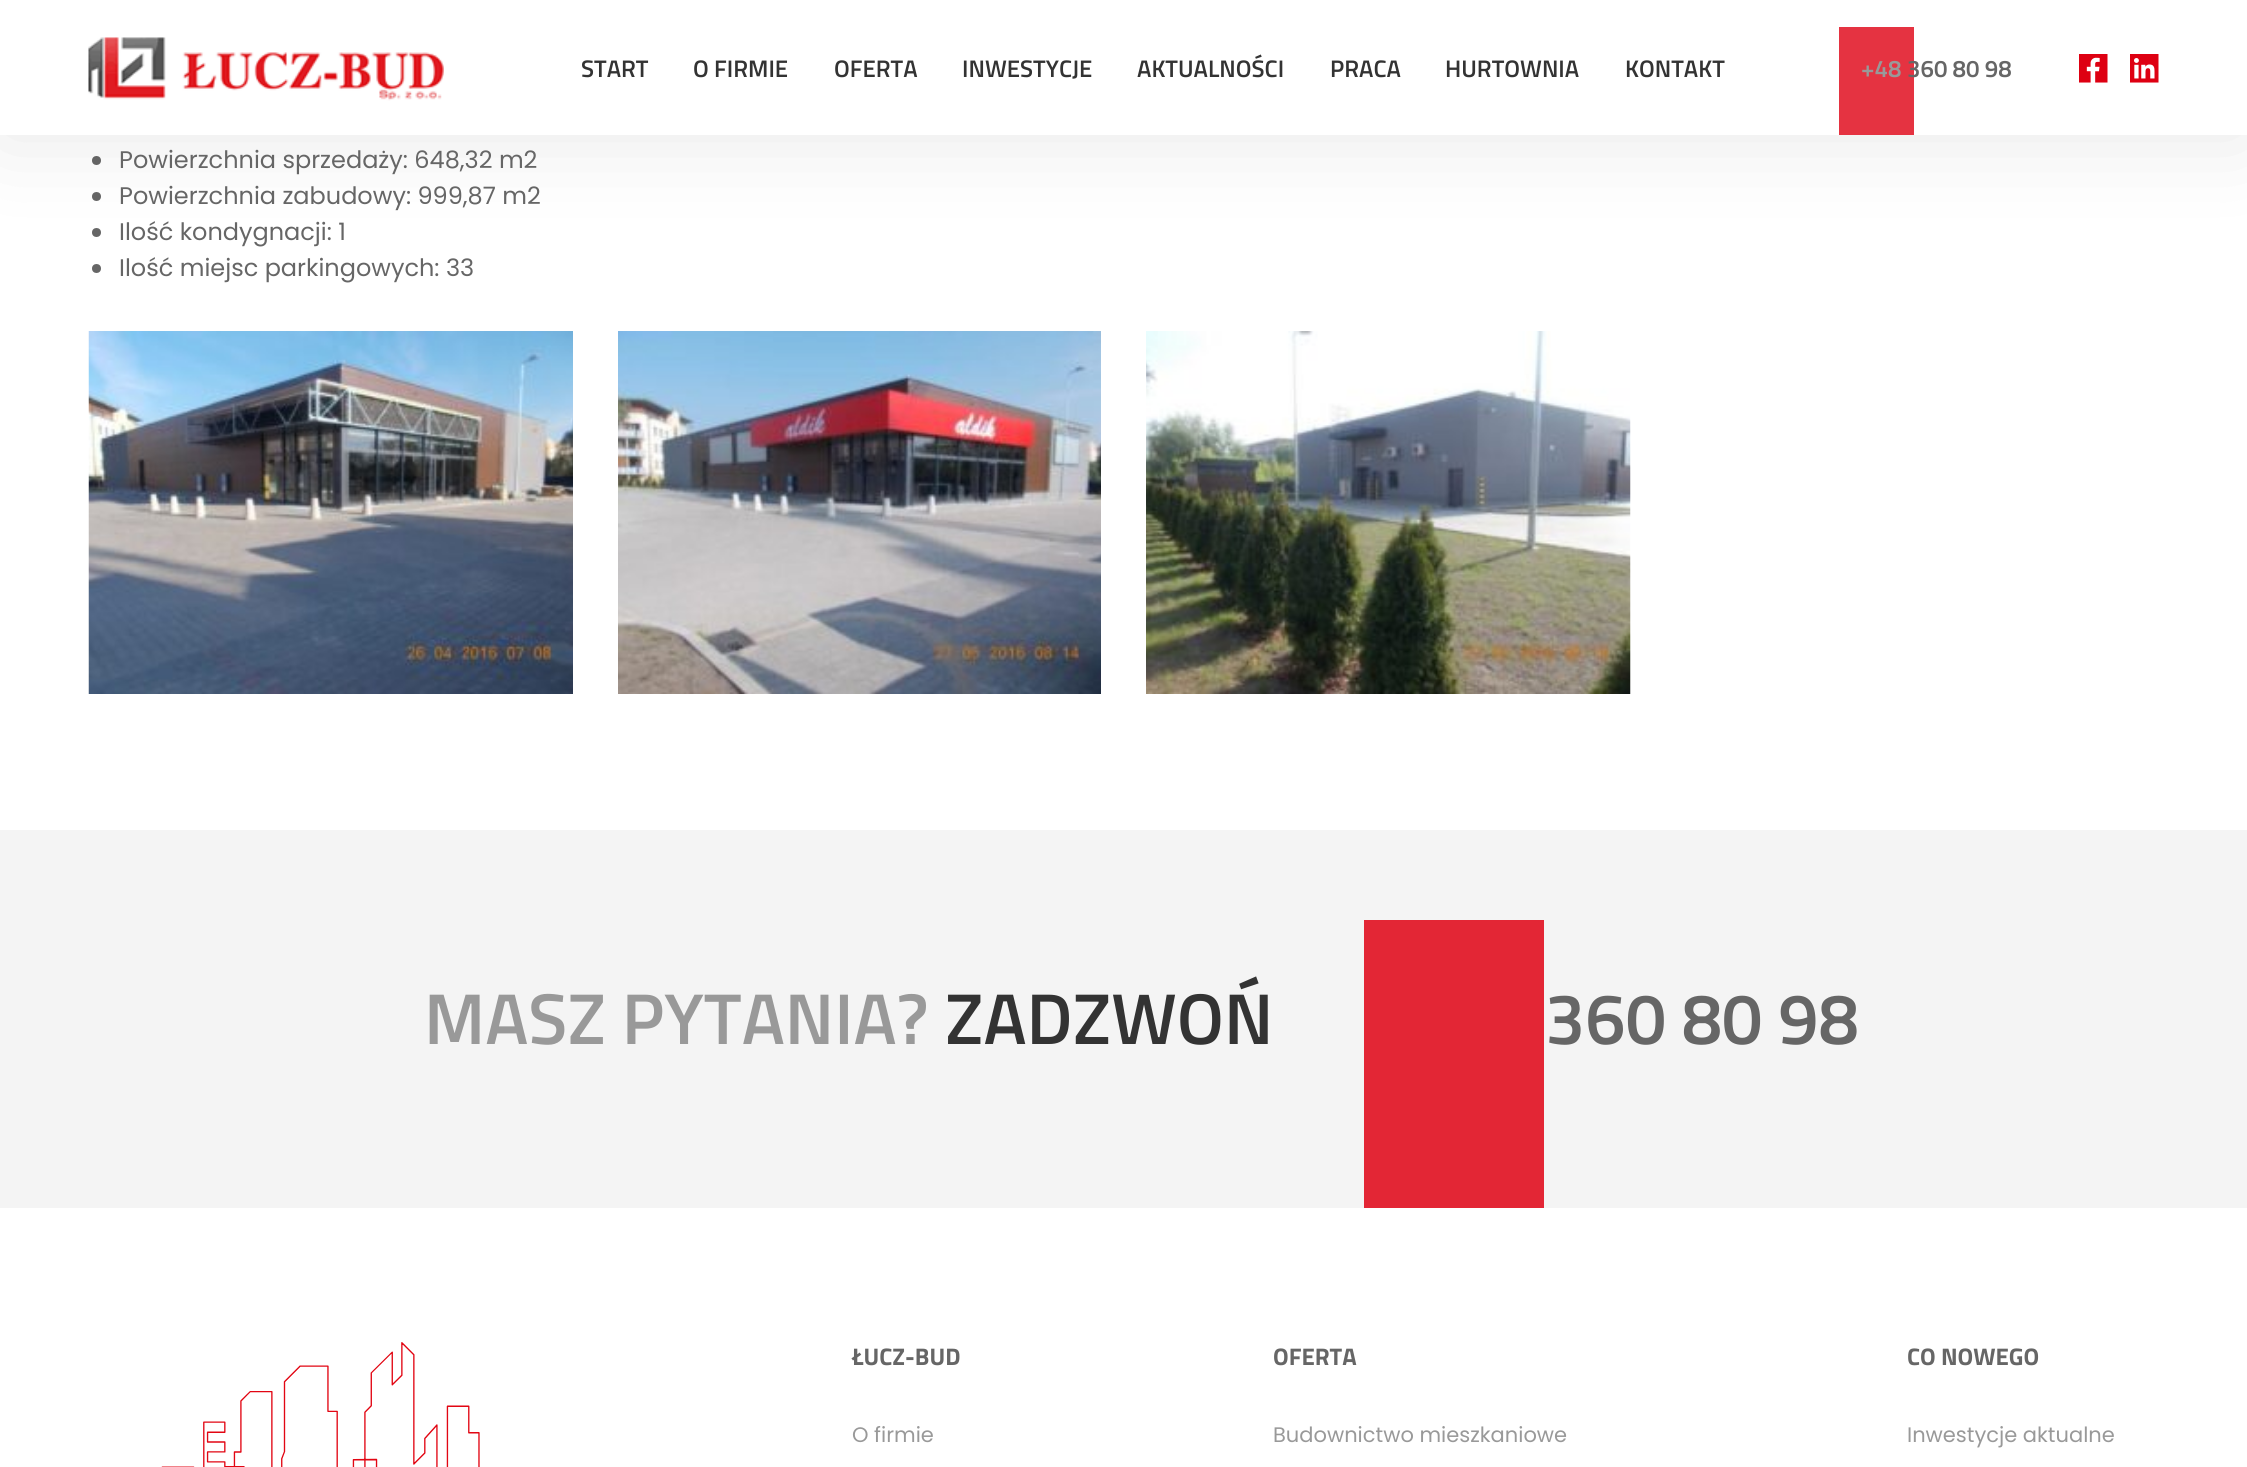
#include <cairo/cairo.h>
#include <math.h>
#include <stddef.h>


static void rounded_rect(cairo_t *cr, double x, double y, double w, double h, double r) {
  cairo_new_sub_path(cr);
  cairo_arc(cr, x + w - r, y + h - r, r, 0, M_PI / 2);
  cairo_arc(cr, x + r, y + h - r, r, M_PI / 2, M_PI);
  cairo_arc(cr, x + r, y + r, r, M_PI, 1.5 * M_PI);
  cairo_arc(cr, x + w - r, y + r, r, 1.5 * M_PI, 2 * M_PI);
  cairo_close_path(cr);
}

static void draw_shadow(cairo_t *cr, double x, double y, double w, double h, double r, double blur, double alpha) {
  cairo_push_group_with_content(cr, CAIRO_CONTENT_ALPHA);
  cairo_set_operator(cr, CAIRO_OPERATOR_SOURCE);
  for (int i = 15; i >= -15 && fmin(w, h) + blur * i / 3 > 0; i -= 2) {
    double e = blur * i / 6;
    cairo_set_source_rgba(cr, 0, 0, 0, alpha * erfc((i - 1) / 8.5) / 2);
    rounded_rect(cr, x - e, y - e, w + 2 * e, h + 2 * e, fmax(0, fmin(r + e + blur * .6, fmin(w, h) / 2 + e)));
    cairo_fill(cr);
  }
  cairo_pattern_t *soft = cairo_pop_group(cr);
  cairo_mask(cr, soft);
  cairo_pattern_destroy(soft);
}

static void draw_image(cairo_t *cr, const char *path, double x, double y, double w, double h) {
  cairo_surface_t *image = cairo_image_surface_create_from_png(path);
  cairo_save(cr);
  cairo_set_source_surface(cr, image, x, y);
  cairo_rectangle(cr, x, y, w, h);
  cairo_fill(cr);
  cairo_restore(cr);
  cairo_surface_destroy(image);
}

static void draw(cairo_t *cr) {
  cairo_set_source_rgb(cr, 1, 1, 1);
  cairo_paint(cr);
  cairo_set_source_rgb(cr, 102 / 255.0, 102 / 255.0, 102 / 255.0);
  cairo_arc(cr, 96.5, 160.5, 4.5, 0, 2 * M_PI);
  cairo_fill(cr);
  cairo_arc(cr, 96.5, 196.5, 4.5, 0, 2 * M_PI);
  cairo_fill(cr);
  cairo_arc(cr, 96.5, 232.5, 4.5, 0, 2 * M_PI);
  cairo_fill(cr);
  cairo_arc(cr, 96.5, 268.5, 4.5, 0, 2 * M_PI);
  cairo_fill(cr);
  cairo_set_source_rgb(cr, 0, 0, 0);
  draw_shadow(cr, 0, 0, 2247, 135, 0, 45, 0.1);
  cairo_set_source_rgb(cr, 1, 1, 1);
  cairo_rectangle(cr, 0, 0, 2247, 135);
  cairo_fill(cr);
  draw_image(cr, "images/1.png", 88, 37, 356, 64);
  cairo_set_source_rgb(cr, 229 / 255.0, 51 / 255.0, 65 / 255.0);
  cairo_rectangle(cr, 1839, 27, 75, 108);
  cairo_fill(cr);
  draw_image(cr, "images/2.png", 2079, 54, 29, 29);
  draw_image(cr, "images/3.png", 2130, 54, 29, 29);
  draw_image(cr, "images/4.png", 88, 331, 485, 363);
  draw_image(cr, "images/5.png", 618, 331, 483, 363);
  draw_image(cr, "images/6.png", 1146, 331, 485, 363);
  cairo_set_source_rgb(cr, 244 / 255.0, 244 / 255.0, 244 / 255.0);
  cairo_rectangle(cr, 0, 830, 2247, 378);
  cairo_fill(cr);
  cairo_set_source_rgb(cr, 227 / 255.0, 38 / 255.0, 53 / 255.0);
  cairo_rectangle(cr, 1364, 920, 180, 288);
  cairo_fill(cr);
  draw_image(cr, "images/7.png", 161, 1342, 319, 125);
  cairo_select_font_face(cr, "Titillium Web SemiBold", CAIRO_FONT_SLANT_NORMAL, CAIRO_FONT_WEIGHT_NORMAL);
  cairo_set_font_size(cr, 24);
  cairo_set_source_rgb(cr, 51 / 255.0, 51 / 255.0, 51 / 255.0);
  cairo_move_to(cr, 581, 77);
  cairo_show_text(cr, "START");
  cairo_move_to(cr, 693, 77);
  cairo_show_text(cr, "O FIRMIE");
  cairo_move_to(cr, 834, 77);
  cairo_show_text(cr, "OFERTA");
  cairo_move_to(cr, 962, 77);
  cairo_show_text(cr, "INWESTYCJE");
  cairo_move_to(cr, 1137, 77);
  cairo_show_text(cr, "AKTUALNOŚCI");
  cairo_move_to(cr, 1330, 77);
  cairo_show_text(cr, "PRACA");
  cairo_move_to(cr, 1445, 77);
  cairo_show_text(cr, "HURTOWNIA");
  cairo_move_to(cr, 1625, 77);
  cairo_show_text(cr, "KONTAKT");
  cairo_set_source_rgb(cr, 153 / 255.0, 153 / 255.0, 153 / 255.0);
  cairo_move_to(cr, 1861, 77);
  cairo_show_text(cr, "+48");
  cairo_set_source_rgb(cr, 102 / 255.0, 102 / 255.0, 102 / 255.0);
  cairo_move_to(cr, 1907, 77);
  cairo_show_text(cr, "360 80 98");
  cairo_select_font_face(cr, "Poppins", CAIRO_FONT_SLANT_NORMAL, CAIRO_FONT_WEIGHT_NORMAL);
  cairo_move_to(cr, 119, 168);
  cairo_show_text(cr, "Powierzchnia sprzedaży: 648,32 m2");
  cairo_move_to(cr, 119, 204);
  cairo_show_text(cr, "Powierzchnia zabudowy: 999,87 m2");
  cairo_move_to(cr, 119, 240);
  cairo_show_text(cr, "Ilość kondygnacji: 1");
  cairo_move_to(cr, 119, 276);
  cairo_show_text(cr, "Ilość miejsc parkingowych: 33");
  cairo_select_font_face(cr, "Titillium Web SemiBold", CAIRO_FONT_SLANT_NORMAL, CAIRO_FONT_WEIGHT_NORMAL);
  cairo_set_font_size(cr, 72);
  cairo_set_source_rgb(cr, 153 / 255.0, 153 / 255.0, 153 / 255.0);
  cairo_move_to(cr, 424, 1044);
  cairo_show_text(cr, "MASZ PYTANIA?");
  cairo_set_source_rgb(cr, 51 / 255.0, 51 / 255.0, 51 / 255.0);
  cairo_move_to(cr, 945, 1044);
  cairo_show_text(cr, "ZADZWOŃ");
  cairo_set_source_rgb(cr, 102 / 255.0, 102 / 255.0, 102 / 255.0);
  cairo_move_to(cr, 1545, 1044);
  cairo_show_text(cr, "360 80 98");
  cairo_select_font_face(cr, "Titillium Web", CAIRO_FONT_SLANT_NORMAL, CAIRO_FONT_WEIGHT_BOLD);
  cairo_set_font_size(cr, 24);
  cairo_move_to(cr, 852, 1365);
  cairo_show_text(cr, "ŁUCZ-BUD");
  cairo_select_font_face(cr, "Poppins", CAIRO_FONT_SLANT_NORMAL, CAIRO_FONT_WEIGHT_NORMAL);
  cairo_set_font_size(cr, 21);
  cairo_set_source_rgb(cr, 153 / 255.0, 153 / 255.0, 153 / 255.0);
  cairo_move_to(cr, 852, 1442);
  cairo_show_text(cr, "O firmie");
  cairo_select_font_face(cr, "Titillium Web", CAIRO_FONT_SLANT_NORMAL, CAIRO_FONT_WEIGHT_BOLD);
  cairo_set_font_size(cr, 24);
  cairo_set_source_rgb(cr, 102 / 255.0, 102 / 255.0, 102 / 255.0);
  cairo_move_to(cr, 1273, 1365);
  cairo_show_text(cr, "OFERTA");
  cairo_select_font_face(cr, "Poppins", CAIRO_FONT_SLANT_NORMAL, CAIRO_FONT_WEIGHT_NORMAL);
  cairo_set_font_size(cr, 21);
  cairo_set_source_rgb(cr, 153 / 255.0, 153 / 255.0, 153 / 255.0);
  cairo_move_to(cr, 1273, 1442);
  cairo_show_text(cr, "Budownictwo mieszkaniowe");
  cairo_select_font_face(cr, "Titillium Web", CAIRO_FONT_SLANT_NORMAL, CAIRO_FONT_WEIGHT_BOLD);
  cairo_set_font_size(cr, 24);
  cairo_set_source_rgb(cr, 102 / 255.0, 102 / 255.0, 102 / 255.0);
  cairo_move_to(cr, 1907, 1365);
  cairo_show_text(cr, "CO NOWEGO");
  cairo_select_font_face(cr, "Poppins", CAIRO_FONT_SLANT_NORMAL, CAIRO_FONT_WEIGHT_NORMAL);
  cairo_set_font_size(cr, 21);
  cairo_set_source_rgb(cr, 153 / 255.0, 153 / 255.0, 153 / 255.0);
  cairo_move_to(cr, 1907, 1442);
  cairo_show_text(cr, "Inwestycje aktualne");
}

int main(void) {
  cairo_surface_t *surface = cairo_image_surface_create(CAIRO_FORMAT_RGB24, 2247, 1467);
  cairo_t *cr = cairo_create(surface);
  cairo_font_options_t *options = cairo_font_options_create();
  cairo_font_options_set_hint_metrics(options, CAIRO_HINT_METRICS_OFF);
  cairo_font_options_set_hint_style(options, CAIRO_HINT_STYLE_NONE);
  cairo_set_font_options(cr, options);
  cairo_set_miter_limit(cr, 4);
  draw(cr);
  cairo_surface_write_to_png(surface, "out.png");
  cairo_font_options_destroy(options);
  cairo_destroy(cr);
  cairo_surface_destroy(surface);
  return 0;
}
